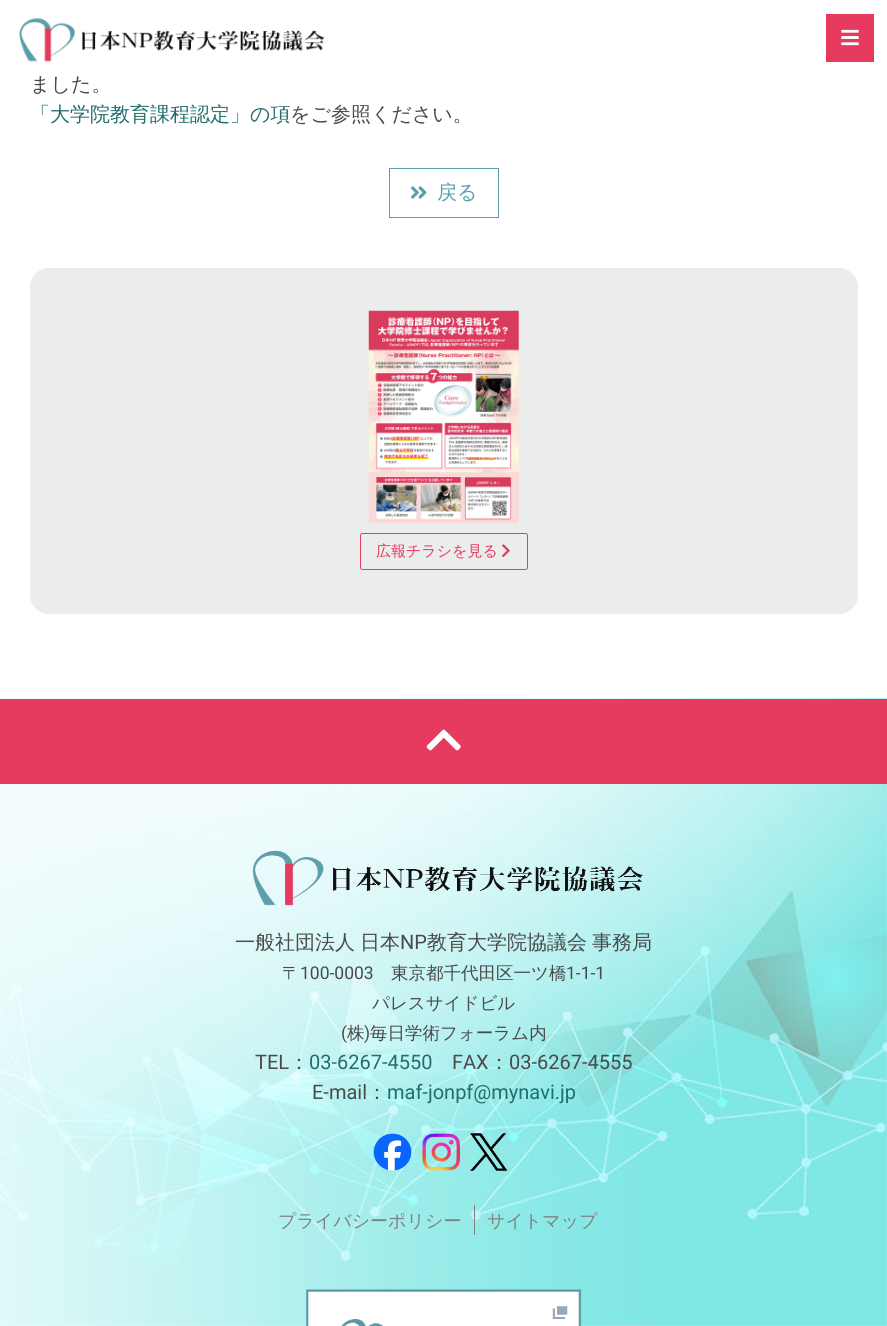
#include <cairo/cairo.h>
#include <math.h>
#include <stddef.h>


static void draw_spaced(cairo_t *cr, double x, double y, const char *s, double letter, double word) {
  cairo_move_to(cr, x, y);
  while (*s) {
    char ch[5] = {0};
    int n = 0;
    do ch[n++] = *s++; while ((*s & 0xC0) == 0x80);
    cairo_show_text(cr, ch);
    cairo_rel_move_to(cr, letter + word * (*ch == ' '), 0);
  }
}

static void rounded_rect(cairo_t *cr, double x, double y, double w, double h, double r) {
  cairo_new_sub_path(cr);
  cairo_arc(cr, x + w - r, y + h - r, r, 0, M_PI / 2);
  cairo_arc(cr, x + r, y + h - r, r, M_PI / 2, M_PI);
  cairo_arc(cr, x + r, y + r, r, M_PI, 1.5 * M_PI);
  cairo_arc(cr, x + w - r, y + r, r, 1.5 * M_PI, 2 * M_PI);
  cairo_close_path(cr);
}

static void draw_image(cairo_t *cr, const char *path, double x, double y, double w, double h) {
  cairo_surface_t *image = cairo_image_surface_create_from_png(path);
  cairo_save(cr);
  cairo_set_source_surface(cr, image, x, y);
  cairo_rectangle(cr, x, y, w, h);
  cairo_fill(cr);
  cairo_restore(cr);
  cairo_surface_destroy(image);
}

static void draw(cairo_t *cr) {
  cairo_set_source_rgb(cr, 1, 1, 1);
  cairo_paint(cr);
  draw_image(cr, "images/1.png", 19, 18, 306, 44);
  cairo_set_source_rgb(cr, 231 / 255.0, 58 / 255.0, 95 / 255.0);
  cairo_rectangle(cr, 826, 14, 48, 48);
  cairo_fill(cr);
  draw_image(cr, "images/2.png", 841, 29, 18, 17);
  cairo_rectangle(cr, 389.5, 168.5, 109, 49);
  cairo_set_source_rgb(cr, 91 / 255.0, 159 / 255.0, 173 / 255.0);
  cairo_set_line_width(cr, 1);
  cairo_stroke(cr);
  draw_image(cr, "images/3.png", 411, 186, 16, 13);
  cairo_set_source_rgb(cr, 235 / 255.0, 237 / 255.0, 237 / 255.0);
  rounded_rect(cr, 30, 268, 828, 346, 19);
  cairo_fill(cr);
  draw_image(cr, "images/4.png", 368, 310, 151, 214);
  rounded_rect(cr, 360.5, 533.5, 167, 36, 2);
  cairo_set_source_rgb(cr, 231 / 255.0, 58 / 255.0, 95 / 255.0);
  cairo_stroke(cr);
  draw_image(cr, "images/5.png", 502, 544, 8, 13);
  draw_image(cr, "images/6.png", 0, 698, 887, 628);
  cairo_rectangle(cr, 0, 699, 887, 85);
  cairo_fill(cr);
  draw_image(cr, "images/7.png", 426, 729, 35, 22);
  draw_image(cr, "images/8.png", 252, 850, 391, 56);
  draw_image(cr, "images/9.png", 373, 1133, 39, 38);
  draw_image(cr, "images/10.png", 422, 1133, 38, 38);
  draw_image(cr, "images/11.png", 470, 1133, 38, 38);
  cairo_set_source_rgb(cr, 128 / 255.0, 128 / 255.0, 128 / 255.0);
  cairo_rectangle(cr, 474, 1205, 1, 30);
  cairo_fill(cr);
  draw_image(cr, "images/12.png", 306, 1289, 276, 37);
  cairo_select_font_face(cr, "WenQuanYi Zen Hei Medium", CAIRO_FONT_SLANT_NORMAL, CAIRO_FONT_WEIGHT_NORMAL);
  cairo_set_font_size(cr, 20);
  cairo_set_source_rgb(cr, 74 / 255.0, 74 / 255.0, 74 / 255.0);
  cairo_move_to(cr, 30, 91);
  cairo_show_text(cr, "ました。");
  cairo_set_source_rgb(cr, 34 / 255.0, 109 / 255.0, 109 / 255.0);
  cairo_move_to(cr, 30, 121);
  cairo_show_text(cr, "「大学院教育課程認定」の項");
  cairo_set_source_rgb(cr, 74 / 255.0, 74 / 255.0, 74 / 255.0);
  cairo_move_to(cr, 290, 121);
  cairo_show_text(cr, "をご参照ください。");
  cairo_set_source_rgb(cr, 91 / 255.0, 159 / 255.0, 173 / 255.0);
  cairo_move_to(cr, 437, 199);
  cairo_show_text(cr, "戻る");
  cairo_set_font_size(cr, 15);
  cairo_set_source_rgb(cr, 231 / 255.0, 58 / 255.0, 95 / 255.0);
  cairo_move_to(cr, 376, 556);
  cairo_show_text(cr, "広報チラシを見る");
  cairo_set_font_size(cr, 20);
  cairo_set_source_rgb(cr, 74 / 255.0, 74 / 255.0, 74 / 255.0);
  draw_spaced(cr, 235, 949, "一般社団法人 日本", 0, -1);
  cairo_select_font_face(cr, "Roboto", CAIRO_FONT_SLANT_NORMAL, CAIRO_FONT_WEIGHT_NORMAL);
  cairo_move_to(cr, 400, 949);
  cairo_show_text(cr, "NP");
  cairo_select_font_face(cr, "WenQuanYi Zen Hei Medium", CAIRO_FONT_SLANT_NORMAL, CAIRO_FONT_WEIGHT_NORMAL);
  draw_spaced(cr, 427, 949, "教育大学院協議会 事務局", 0, -1);
  cairo_set_font_size(cr, 17.5);
  cairo_move_to(cr, 282, 979);
  cairo_show_text(cr, "〒");
  cairo_select_font_face(cr, "Roboto", CAIRO_FONT_SLANT_NORMAL, CAIRO_FONT_WEIGHT_NORMAL);
  cairo_move_to(cr, 300, 979);
  cairo_show_text(cr, "100-0003");
  cairo_select_font_face(cr, "WenQuanYi Zen Hei Medium", CAIRO_FONT_SLANT_NORMAL, CAIRO_FONT_WEIGHT_NORMAL);
  cairo_move_to(cr, 391, 979);
  cairo_show_text(cr, "東京都千代田区一ツ橋");
  cairo_select_font_face(cr, "Roboto", CAIRO_FONT_SLANT_NORMAL, CAIRO_FONT_WEIGHT_NORMAL);
  cairo_move_to(cr, 566, 979);
  cairo_show_text(cr, "1-1-1");
  cairo_select_font_face(cr, "WenQuanYi Zen Hei Medium", CAIRO_FONT_SLANT_NORMAL, CAIRO_FONT_WEIGHT_NORMAL);
  cairo_move_to(cr, 372, 1009);
  cairo_show_text(cr, "パレスサイドビル");
  cairo_select_font_face(cr, "Roboto", CAIRO_FONT_SLANT_NORMAL, CAIRO_FONT_WEIGHT_NORMAL);
  cairo_move_to(cr, 341, 1039);
  cairo_show_text(cr, "(");
  cairo_select_font_face(cr, "WenQuanYi Zen Hei Medium", CAIRO_FONT_SLANT_NORMAL, CAIRO_FONT_WEIGHT_NORMAL);
  cairo_move_to(cr, 347, 1039);
  cairo_show_text(cr, "株");
  cairo_select_font_face(cr, "Roboto", CAIRO_FONT_SLANT_NORMAL, CAIRO_FONT_WEIGHT_NORMAL);
  cairo_move_to(cr, 364, 1039);
  cairo_show_text(cr, ")");
  cairo_select_font_face(cr, "WenQuanYi Zen Hei Medium", CAIRO_FONT_SLANT_NORMAL, CAIRO_FONT_WEIGHT_NORMAL);
  cairo_move_to(cr, 370, 1039);
  cairo_show_text(cr, "毎日学術フォーラム内");
  cairo_select_font_face(cr, "Roboto", CAIRO_FONT_SLANT_NORMAL, CAIRO_FONT_WEIGHT_NORMAL);
  cairo_set_font_size(cr, 20);
  cairo_move_to(cr, 255, 1069);
  cairo_show_text(cr, "TEL");
  cairo_select_font_face(cr, "WenQuanYi Zen Hei Medium", CAIRO_FONT_SLANT_NORMAL, CAIRO_FONT_WEIGHT_NORMAL);
  cairo_move_to(cr, 289, 1069);
  cairo_show_text(cr, "：");
  cairo_select_font_face(cr, "Roboto", CAIRO_FONT_SLANT_NORMAL, CAIRO_FONT_WEIGHT_NORMAL);
  cairo_set_source_rgb(cr, 34 / 255.0, 109 / 255.0, 109 / 255.0);
  cairo_move_to(cr, 309, 1069);
  cairo_show_text(cr, "03-6267-4550");
  cairo_set_source_rgb(cr, 74 / 255.0, 74 / 255.0, 74 / 255.0);
  cairo_move_to(cr, 452, 1069);
  cairo_show_text(cr, "FAX");
  cairo_select_font_face(cr, "WenQuanYi Zen Hei Medium", CAIRO_FONT_SLANT_NORMAL, CAIRO_FONT_WEIGHT_NORMAL);
  cairo_move_to(cr, 489, 1069);
  cairo_show_text(cr, "：");
  cairo_select_font_face(cr, "Roboto", CAIRO_FONT_SLANT_NORMAL, CAIRO_FONT_WEIGHT_NORMAL);
  cairo_move_to(cr, 509, 1069);
  cairo_show_text(cr, "03-6267-4555");
  cairo_move_to(cr, 312, 1099);
  cairo_show_text(cr, "E-mail");
  cairo_select_font_face(cr, "WenQuanYi Zen Hei Medium", CAIRO_FONT_SLANT_NORMAL, CAIRO_FONT_WEIGHT_NORMAL);
  cairo_move_to(cr, 367, 1099);
  cairo_show_text(cr, "：");
  cairo_select_font_face(cr, "Roboto", CAIRO_FONT_SLANT_NORMAL, CAIRO_FONT_WEIGHT_NORMAL);
  cairo_set_source_rgb(cr, 34 / 255.0, 109 / 255.0, 109 / 255.0);
  cairo_move_to(cr, 387, 1099);
  cairo_show_text(cr, "maf-jonpf@mynavi.jp");
  cairo_select_font_face(cr, "WenQuanYi Zen Hei Medium", CAIRO_FONT_SLANT_NORMAL, CAIRO_FONT_WEIGHT_NORMAL);
  cairo_set_font_size(cr, 18);
  cairo_set_source_rgb(cr, 128 / 255.0, 128 / 255.0, 128 / 255.0);
  cairo_move_to(cr, 278, 1227);
  cairo_show_text(cr, "プライバシーポリシー");
  cairo_move_to(cr, 487, 1227);
  cairo_show_text(cr, "サイトマップ");
}

int main(void) {
  cairo_surface_t *surface = cairo_image_surface_create(CAIRO_FORMAT_RGB24, 887, 1326);
  cairo_t *cr = cairo_create(surface);
  cairo_font_options_t *options = cairo_font_options_create();
  cairo_font_options_set_hint_metrics(options, CAIRO_HINT_METRICS_OFF);
  cairo_font_options_set_hint_style(options, CAIRO_HINT_STYLE_NONE);
  cairo_set_font_options(cr, options);
  cairo_set_miter_limit(cr, 4);
  draw(cr);
  cairo_surface_write_to_png(surface, "out.png");
  cairo_font_options_destroy(options);
  cairo_destroy(cr);
  cairo_surface_destroy(surface);
  return 0;
}
